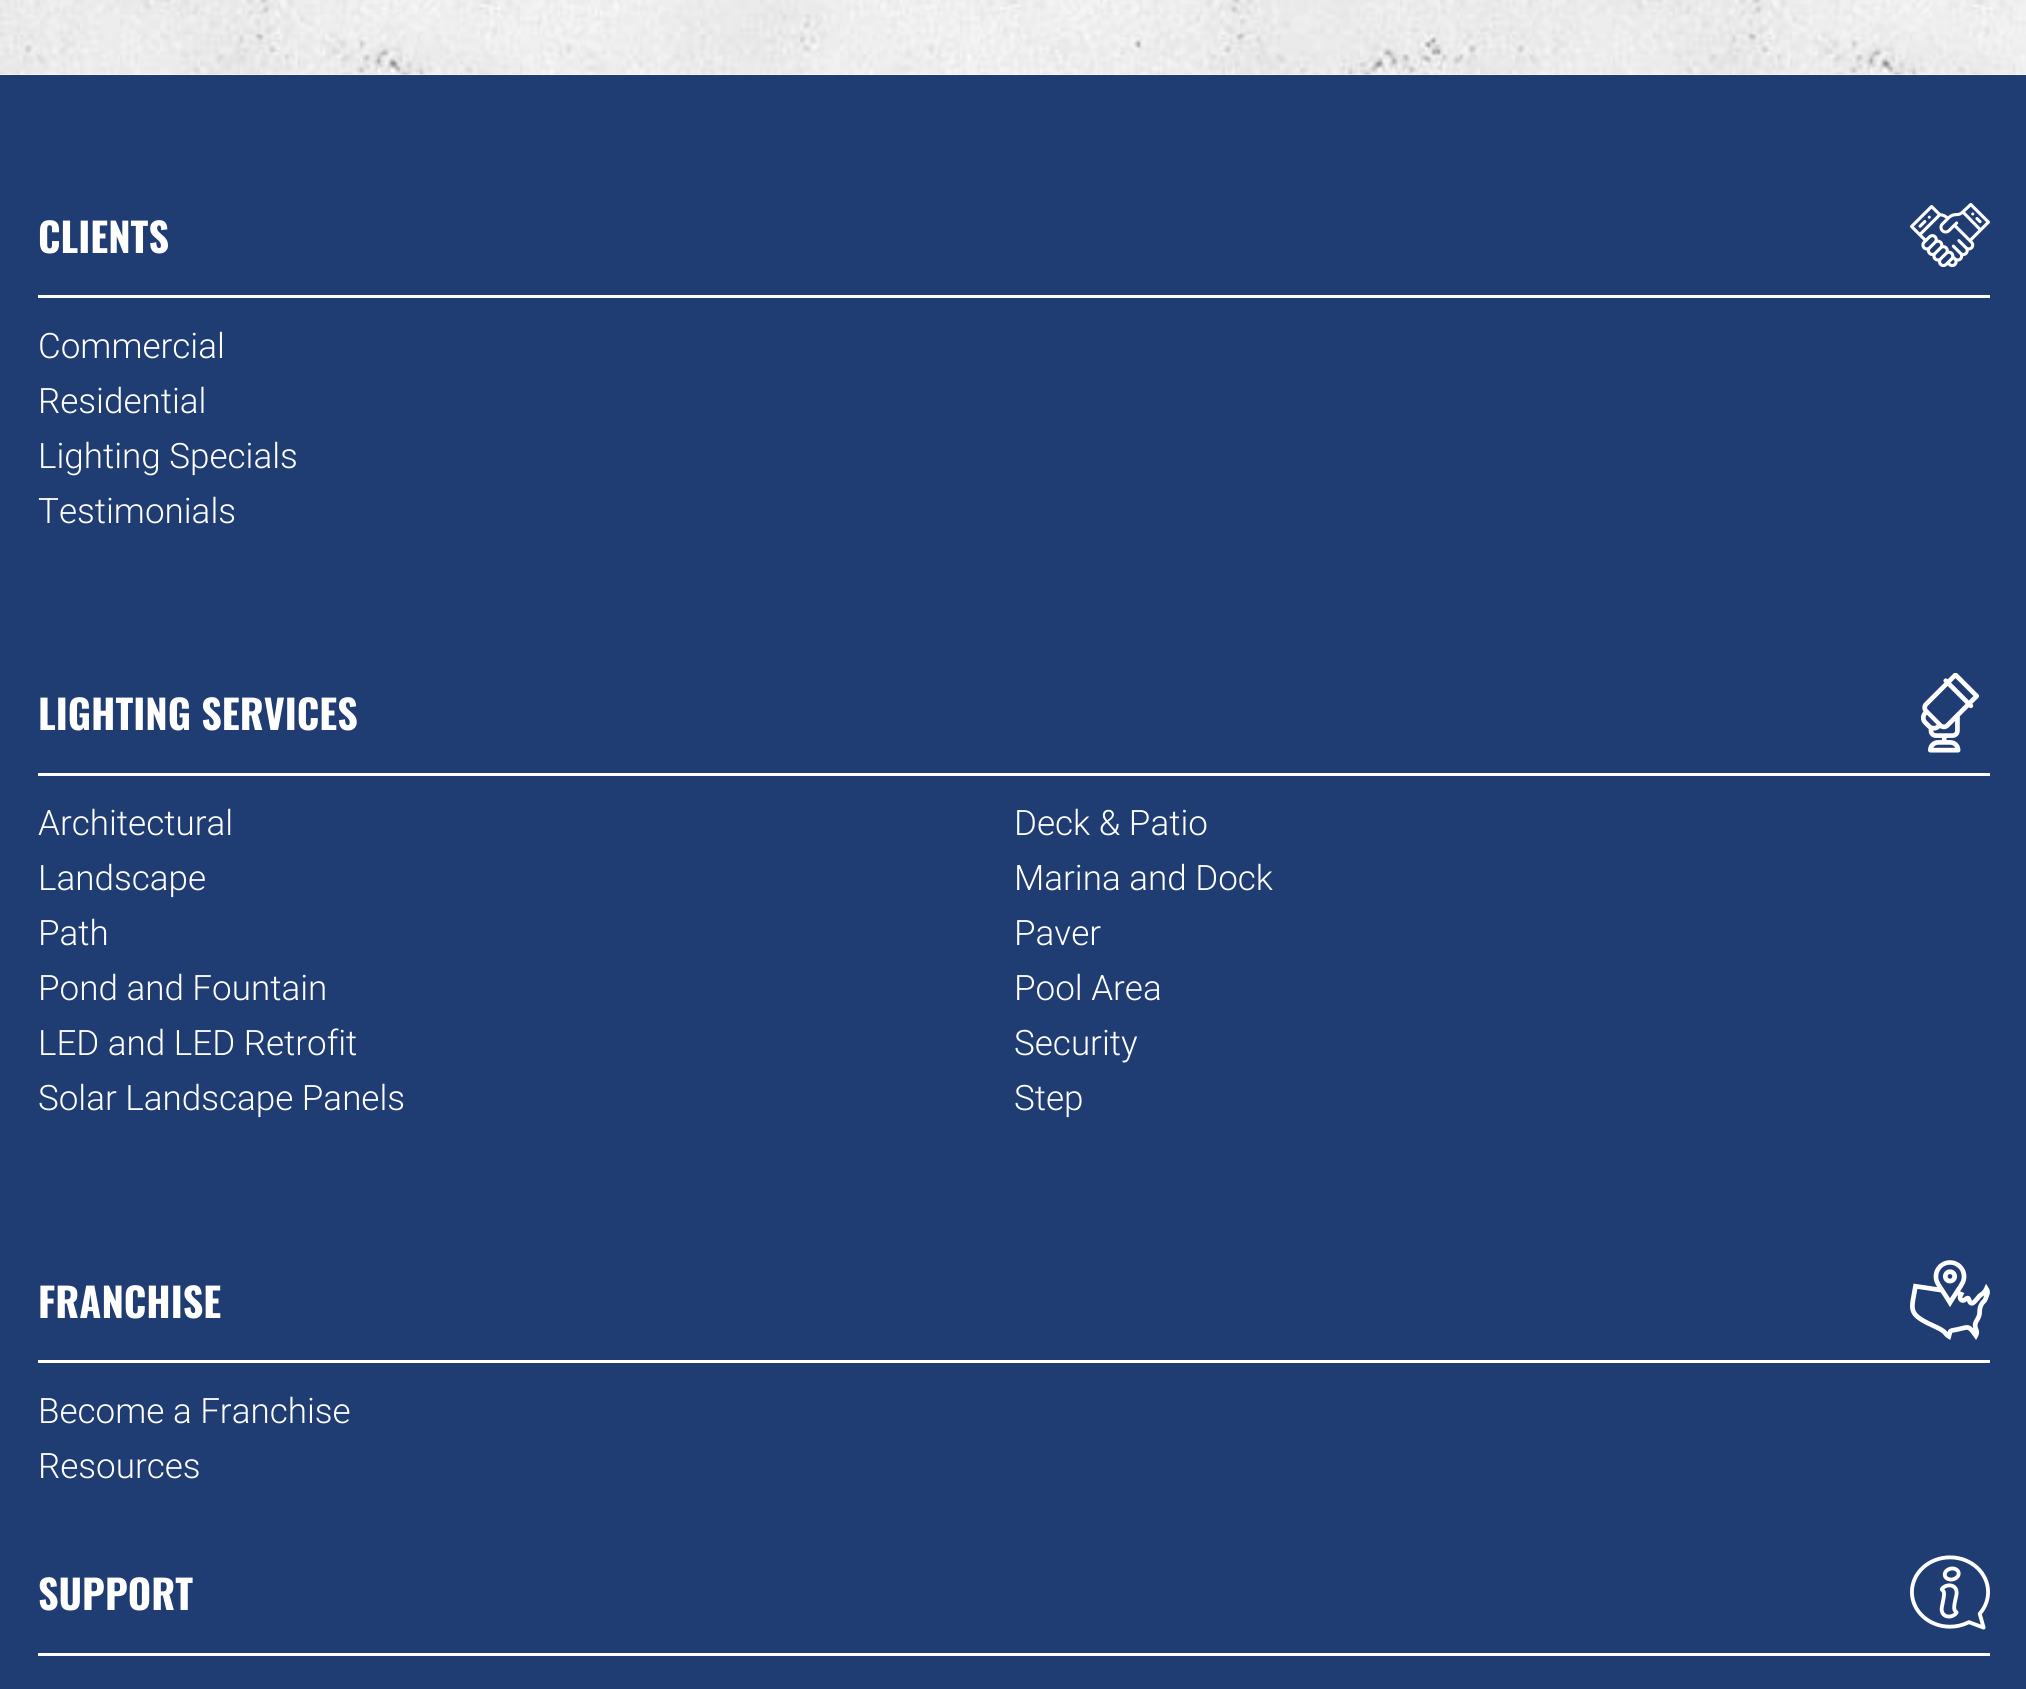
#include <cairo/cairo.h>
#include <math.h>
#include <stddef.h>


static void draw_image(cairo_t *cr, const char *path, double x, double y, double w, double h) {
  cairo_surface_t *image = cairo_image_surface_create_from_png(path);
  cairo_save(cr);
  cairo_set_source_surface(cr, image, x, y);
  cairo_rectangle(cr, x, y, w, h);
  cairo_fill(cr);
  cairo_restore(cr);
  cairo_surface_destroy(image);
}

static void draw(cairo_t *cr) {
  cairo_set_source_rgb(cr, 1, 1, 1);
  cairo_paint(cr);
  draw_image(cr, "images/1.png", 0, 0, 2026, 75);
  cairo_set_source_rgb(cr, 31 / 255.0, 60 / 255.0, 115 / 255.0);
  cairo_rectangle(cr, 0, 75, 2026, 1614);
  cairo_fill(cr);
  cairo_set_source_rgb(cr, 1, 1, 1);
  cairo_rectangle(cr, 38, 295, 1952, 3);
  cairo_fill(cr);
  draw_image(cr, "images/2.png", 1910, 202, 80, 66);
  cairo_rectangle(cr, 38, 773, 1952, 3);
  cairo_fill(cr);
  draw_image(cr, "images/3.png", 1920, 673, 59, 80);
  cairo_rectangle(cr, 38, 1360, 1952, 3);
  cairo_fill(cr);
  draw_image(cr, "images/4.png", 1910, 1260, 80, 80);
  cairo_rectangle(cr, 38, 1653, 1952, 3);
  cairo_fill(cr);
  draw_image(cr, "images/5.png", 1910, 1555, 80, 75);
  cairo_select_font_face(cr, "Oswald", CAIRO_FONT_SLANT_NORMAL, CAIRO_FONT_WEIGHT_BOLD);
  cairo_set_font_size(cr, 40);
  cairo_move_to(cr, 38, 253);
  cairo_show_text(cr, "CLIENTS");
  cairo_select_font_face(cr, "Roboto Light", CAIRO_FONT_SLANT_NORMAL, CAIRO_FONT_WEIGHT_NORMAL);
  cairo_set_font_size(cr, 35);
  cairo_move_to(cr, 38, 358);
  cairo_show_text(cr, "Commercial");
  cairo_move_to(cr, 38, 413);
  cairo_show_text(cr, "Residential");
  cairo_move_to(cr, 38, 468);
  cairo_show_text(cr, "Lighting Specials");
  cairo_move_to(cr, 38, 523);
  cairo_show_text(cr, "Testimonials");
  cairo_select_font_face(cr, "Oswald", CAIRO_FONT_SLANT_NORMAL, CAIRO_FONT_WEIGHT_BOLD);
  cairo_set_font_size(cr, 40);
  cairo_move_to(cr, 38, 730);
  cairo_show_text(cr, "LIGHTING SERVICES");
  cairo_select_font_face(cr, "Roboto Light", CAIRO_FONT_SLANT_NORMAL, CAIRO_FONT_WEIGHT_NORMAL);
  cairo_set_font_size(cr, 35);
  cairo_move_to(cr, 38, 835);
  cairo_show_text(cr, "Architectural");
  cairo_move_to(cr, 1014, 835);
  cairo_show_text(cr, "Deck & Patio");
  cairo_move_to(cr, 38, 890);
  cairo_show_text(cr, "Landscape");
  cairo_move_to(cr, 1014, 890);
  cairo_show_text(cr, "Marina and Dock");
  cairo_move_to(cr, 38, 945);
  cairo_show_text(cr, "Path");
  cairo_move_to(cr, 1014, 945);
  cairo_show_text(cr, "Paver");
  cairo_move_to(cr, 38, 1000);
  cairo_show_text(cr, "Pond and Fountain");
  cairo_move_to(cr, 1014, 1000);
  cairo_show_text(cr, "Pool Area");
  cairo_move_to(cr, 38, 1055);
  cairo_show_text(cr, "LED and LED Retrofit");
  cairo_move_to(cr, 1014, 1055);
  cairo_show_text(cr, "Security");
  cairo_move_to(cr, 38, 1110);
  cairo_show_text(cr, "Solar Landscape Panels");
  cairo_move_to(cr, 1014, 1110);
  cairo_show_text(cr, "Step");
  cairo_select_font_face(cr, "Oswald", CAIRO_FONT_SLANT_NORMAL, CAIRO_FONT_WEIGHT_BOLD);
  cairo_set_font_size(cr, 40);
  cairo_move_to(cr, 38, 1318);
  cairo_show_text(cr, "FRANCHISE");
  cairo_select_font_face(cr, "Roboto Light", CAIRO_FONT_SLANT_NORMAL, CAIRO_FONT_WEIGHT_NORMAL);
  cairo_set_font_size(cr, 35);
  cairo_move_to(cr, 38, 1423);
  cairo_show_text(cr, "Become a Franchise");
  cairo_move_to(cr, 38, 1478);
  cairo_show_text(cr, "Resources");
  cairo_select_font_face(cr, "Oswald", CAIRO_FONT_SLANT_NORMAL, CAIRO_FONT_WEIGHT_BOLD);
  cairo_set_font_size(cr, 40);
  cairo_move_to(cr, 38, 1610);
  cairo_show_text(cr, "SUPPORT");
}

int main(void) {
  cairo_surface_t *surface = cairo_image_surface_create(CAIRO_FORMAT_RGB24, 2026, 1689);
  cairo_t *cr = cairo_create(surface);
  cairo_font_options_t *options = cairo_font_options_create();
  cairo_font_options_set_hint_metrics(options, CAIRO_HINT_METRICS_OFF);
  cairo_font_options_set_hint_style(options, CAIRO_HINT_STYLE_NONE);
  cairo_set_font_options(cr, options);
  cairo_set_miter_limit(cr, 4);
  draw(cr);
  cairo_surface_write_to_png(surface, "out.png");
  cairo_font_options_destroy(options);
  cairo_destroy(cr);
  cairo_surface_destroy(surface);
  return 0;
}
